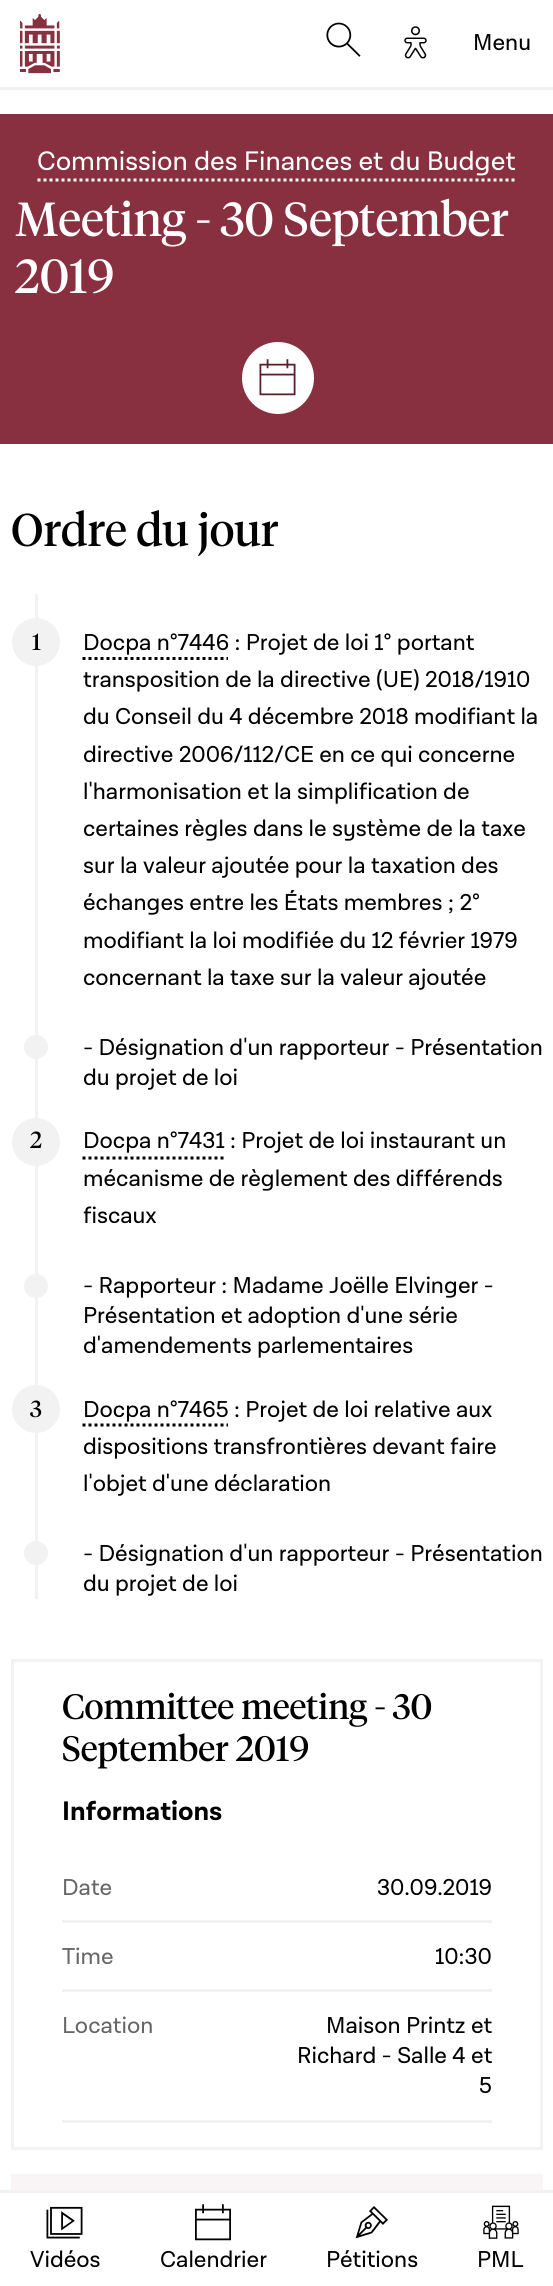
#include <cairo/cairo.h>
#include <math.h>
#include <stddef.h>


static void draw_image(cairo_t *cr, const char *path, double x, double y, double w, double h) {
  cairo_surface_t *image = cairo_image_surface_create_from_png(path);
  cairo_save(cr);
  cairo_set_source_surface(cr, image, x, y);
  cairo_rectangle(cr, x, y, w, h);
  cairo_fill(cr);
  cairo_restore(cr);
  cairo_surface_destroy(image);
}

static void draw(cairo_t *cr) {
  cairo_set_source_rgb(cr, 1, 1, 1);
  cairo_paint(cr);
  cairo_set_source_rgb(cr, 242 / 255.0, 242 / 255.0, 242 / 255.0);
  cairo_rectangle(cr, 0, 87, 553, 3);
  cairo_fill(cr);
  draw_image(cr, "images/1.png", 20, 14, 40, 60);
  draw_image(cr, "images/2.png", 326, 22, 35, 35);
  draw_image(cr, "images/3.png", 404, 26, 23, 33);
  cairo_rectangle(cr, 0, 2190, 553, 3);
  cairo_fill(cr);
  draw_image(cr, "images/4.png", 46, 2206, 37, 33);
  draw_image(cr, "images/5.png", 195, 2204, 36, 37);
  draw_image(cr, "images/6.png", 355, 2206, 33, 33);
  draw_image(cr, "images/7.png", 483, 2205, 36, 34);
  cairo_set_source_rgb(cr, 137 / 255.0, 48 / 255.0, 64 / 255.0);
  cairo_rectangle(cr, 0, 114, 553, 330);
  cairo_fill(cr);
  cairo_new_path(cr);
  cairo_move_to(cr, 37.5, 180);
  cairo_line_to(cr, 516, 180);
  cairo_set_source_rgb(cr, 1, 1, 1);
  cairo_set_line_width(cr, 3);
  cairo_set_dash(cr, (double[]){3, 3}, 2, 0);
  cairo_stroke(cr);
  cairo_arc(cr, 278, 378, 36, 0, 2 * M_PI);
  cairo_fill(cr);
  draw_image(cr, "images/8.png", 259, 359, 37, 37);
  cairo_set_source_rgb(cr, 242 / 255.0, 242 / 255.0, 242 / 255.0);
  cairo_rectangle(cr, 35, 594, 3, 1005);
  cairo_fill(cr);
  cairo_arc(cr, 36, 642, 24, 0, 2 * M_PI);
  cairo_fill(cr);
  cairo_new_path(cr);
  cairo_move_to(cr, 82.5, 658.5);
  cairo_line_to(cr, 228, 658.5);
  cairo_set_source_rgb(cr, 0, 0, 0);
  cairo_stroke(cr);
  cairo_set_source_rgb(cr, 242 / 255.0, 242 / 255.0, 242 / 255.0);
  cairo_arc(cr, 36, 1047, 12, 0, 2 * M_PI);
  cairo_fill(cr);
  cairo_arc(cr, 36, 1142, 24, 0, 2 * M_PI);
  cairo_fill(cr);
  cairo_new_path(cr);
  cairo_move_to(cr, 82.5, 1158);
  cairo_line_to(cr, 223.5, 1158);
  cairo_set_source_rgb(cr, 0, 0, 0);
  cairo_stroke(cr);
  cairo_set_source_rgb(cr, 242 / 255.0, 242 / 255.0, 242 / 255.0);
  cairo_arc(cr, 36, 1286, 12, 0, 2 * M_PI);
  cairo_fill(cr);
  cairo_arc(cr, 36, 1409, 24, 0, 2 * M_PI);
  cairo_fill(cr);
  cairo_new_path(cr);
  cairo_move_to(cr, 82.5, 1425);
  cairo_line_to(cr, 228, 1425);
  cairo_set_source_rgb(cr, 0, 0, 0);
  cairo_stroke(cr);
  cairo_set_source_rgb(cr, 242 / 255.0, 242 / 255.0, 242 / 255.0);
  cairo_arc(cr, 36, 1553, 12, 0, 2 * M_PI);
  cairo_fill(cr);
  cairo_rectangle(cr, 12.5, 1660.5, 529, 488);
  cairo_set_dash(cr, NULL, 0, 0);
  cairo_stroke(cr);
  cairo_rectangle(cr, 62, 1920, 430, 3);
  cairo_fill(cr);
  cairo_rectangle(cr, 62, 1989, 430, 3);
  cairo_fill(cr);
  cairo_rectangle(cr, 62, 2120, 430, 3);
  cairo_fill(cr);
  cairo_set_source_rgb(cr, 249 / 255.0, 244 / 255.0, 245 / 255.0);
  cairo_rectangle(cr, 11, 2174, 532, 16);
  cairo_fill(cr);
  cairo_select_font_face(cr, "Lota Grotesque", CAIRO_FONT_SLANT_NORMAL, CAIRO_FONT_WEIGHT_NORMAL);
  cairo_set_font_size(cr, 23.25);
  cairo_set_source_rgb(cr, 0, 0, 0);
  cairo_move_to(cr, 473, 50);
  cairo_show_text(cr, "Menu");
  cairo_move_to(cr, 30, 2267);
  cairo_show_text(cr, "Vidéos");
  cairo_move_to(cr, 160, 2267);
  cairo_show_text(cr, "Calendrier");
  cairo_move_to(cr, 326, 2267);
  cairo_show_text(cr, "Pétitions");
  cairo_move_to(cr, 477, 2267);
  cairo_show_text(cr, "PML");
  cairo_set_font_size(cr, 27.1);
  cairo_set_source_rgb(cr, 1, 1, 1);
  cairo_move_to(cr, 37, 170);
  cairo_show_text(cr, "Commission des Finances et du Budget");
  cairo_select_font_face(cr, "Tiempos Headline", CAIRO_FONT_SLANT_NORMAL, CAIRO_FONT_WEIGHT_NORMAL);
  cairo_set_font_size(cr, 47.6);
  cairo_move_to(cr, 15, 236);
  cairo_show_text(cr, "Meeting - 30 September");
  cairo_move_to(cr, 15, 293);
  cairo_show_text(cr, "2019");
  cairo_set_font_size(cr, 45.75);
  cairo_set_source_rgb(cr, 0, 0, 0);
  cairo_move_to(cr, 11, 546);
  cairo_show_text(cr, "Ordre du jour");
  cairo_set_font_size(cr, 23.25);
  cairo_move_to(cr, 32, 650);
  cairo_show_text(cr, "1");
  cairo_select_font_face(cr, "Lota Grotesque", CAIRO_FONT_SLANT_NORMAL, CAIRO_FONT_WEIGHT_NORMAL);
  cairo_move_to(cr, 83, 650);
  cairo_show_text(cr, "Docpa n°7446 : Projet de loi 1° portant");
  cairo_move_to(cr, 83, 687);
  cairo_show_text(cr, "transposition de la directive (UE) 2018/1910");
  cairo_move_to(cr, 83, 724);
  cairo_show_text(cr, "du Conseil du 4 décembre 2018 modifiant la");
  cairo_move_to(cr, 83, 762);
  cairo_show_text(cr, "directive 2006/112/CE en ce qui concerne");
  cairo_move_to(cr, 83, 799);
  cairo_show_text(cr, "l'harmonisation et la simplification de");
  cairo_move_to(cr, 83, 836);
  cairo_show_text(cr, "certaines règles dans le système de la taxe");
  cairo_move_to(cr, 83, 873);
  cairo_show_text(cr, "sur la valeur ajoutée pour la taxation des");
  cairo_move_to(cr, 83, 910);
  cairo_show_text(cr, "échanges entre les États membres ; 2°");
  cairo_move_to(cr, 83, 948);
  cairo_show_text(cr, "modifiant la loi modifiée du 12 février 1979");
  cairo_move_to(cr, 83, 985);
  cairo_show_text(cr, "concernant la taxe sur la valeur ajoutée");
  cairo_move_to(cr, 83, 1055);
  cairo_show_text(cr, "- Désignation d'un rapporteur - Présentation");
  cairo_move_to(cr, 83, 1085);
  cairo_show_text(cr, "du projet de loi");
  cairo_select_font_face(cr, "Tiempos Headline", CAIRO_FONT_SLANT_NORMAL, CAIRO_FONT_WEIGHT_NORMAL);
  cairo_move_to(cr, 30, 1148);
  cairo_show_text(cr, "2");
  cairo_select_font_face(cr, "Lota Grotesque", CAIRO_FONT_SLANT_NORMAL, CAIRO_FONT_WEIGHT_NORMAL);
  cairo_move_to(cr, 83, 1148);
  cairo_show_text(cr, "Docpa n°7431 : Projet de loi instaurant un");
  cairo_move_to(cr, 83, 1186);
  cairo_show_text(cr, "mécanisme de règlement des différends");
  cairo_move_to(cr, 83, 1223);
  cairo_show_text(cr, "fiscaux");
  cairo_move_to(cr, 83, 1293);
  cairo_show_text(cr, "- Rapporteur : Madame Joëlle Elvinger -");
  cairo_move_to(cr, 83, 1323);
  cairo_show_text(cr, "Présentation et adoption d'une série");
  cairo_move_to(cr, 83, 1353);
  cairo_show_text(cr, "d'amendements parlementaires");
  cairo_select_font_face(cr, "Tiempos Headline", CAIRO_FONT_SLANT_NORMAL, CAIRO_FONT_WEIGHT_NORMAL);
  cairo_move_to(cr, 30, 1417);
  cairo_show_text(cr, "3");
  cairo_select_font_face(cr, "Lota Grotesque", CAIRO_FONT_SLANT_NORMAL, CAIRO_FONT_WEIGHT_NORMAL);
  cairo_move_to(cr, 83, 1417);
  cairo_show_text(cr, "Docpa n°7465 : Projet de loi relative aux");
  cairo_move_to(cr, 83, 1454);
  cairo_show_text(cr, "dispositions transfrontières devant faire");
  cairo_move_to(cr, 83, 1491);
  cairo_show_text(cr, "l'objet d'une déclaration");
  cairo_move_to(cr, 83, 1561);
  cairo_show_text(cr, "- Désignation d'un rapporteur - Présentation");
  cairo_move_to(cr, 83, 1591);
  cairo_show_text(cr, "du projet de loi");
  cairo_select_font_face(cr, "Tiempos Headline", CAIRO_FONT_SLANT_NORMAL, CAIRO_FONT_WEIGHT_NORMAL);
  cairo_set_font_size(cr, 35.25);
  cairo_move_to(cr, 62, 1719);
  cairo_show_text(cr, "Committee meeting - 30");
  cairo_move_to(cr, 62, 1761);
  cairo_show_text(cr, "September 2019");
  cairo_select_font_face(cr, "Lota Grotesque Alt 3", CAIRO_FONT_SLANT_NORMAL, CAIRO_FONT_WEIGHT_BOLD);
  cairo_set_font_size(cr, 27.1);
  cairo_move_to(cr, 62, 1820);
  cairo_show_text(cr, "Informations");
  cairo_select_font_face(cr, "Lota Grotesque", CAIRO_FONT_SLANT_NORMAL, CAIRO_FONT_WEIGHT_NORMAL);
  cairo_set_font_size(cr, 23.25);
  cairo_set_source_rgb(cr, 102 / 255.0, 102 / 255.0, 102 / 255.0);
  cairo_move_to(cr, 62, 1895);
  cairo_show_text(cr, "Date");
  cairo_set_source_rgb(cr, 0, 0, 0);
  cairo_move_to(cr, 377, 1895);
  cairo_show_text(cr, "30.09.2019");
  cairo_set_source_rgb(cr, 102 / 255.0, 102 / 255.0, 102 / 255.0);
  cairo_move_to(cr, 62, 1964);
  cairo_show_text(cr, "Time");
  cairo_set_source_rgb(cr, 0, 0, 0);
  cairo_move_to(cr, 435, 1964);
  cairo_show_text(cr, "10:30");
  cairo_set_source_rgb(cr, 102 / 255.0, 102 / 255.0, 102 / 255.0);
  cairo_move_to(cr, 62, 2033);
  cairo_show_text(cr, "Location");
  cairo_set_source_rgb(cr, 0, 0, 0);
  cairo_move_to(cr, 326, 2033);
  cairo_show_text(cr, "Maison Printz et");
  cairo_move_to(cr, 297, 2063);
  cairo_show_text(cr, "Richard - Salle 4 et");
  cairo_move_to(cr, 479, 2093);
  cairo_show_text(cr, "5");
}

int main(void) {
  cairo_surface_t *surface = cairo_image_surface_create(CAIRO_FORMAT_RGB24, 553, 2286);
  cairo_t *cr = cairo_create(surface);
  cairo_font_options_t *options = cairo_font_options_create();
  cairo_font_options_set_hint_metrics(options, CAIRO_HINT_METRICS_OFF);
  cairo_font_options_set_hint_style(options, CAIRO_HINT_STYLE_NONE);
  cairo_set_font_options(cr, options);
  cairo_set_miter_limit(cr, 4);
  draw(cr);
  cairo_surface_write_to_png(surface, "out.png");
  cairo_font_options_destroy(options);
  cairo_destroy(cr);
  cairo_surface_destroy(surface);
  return 0;
}
